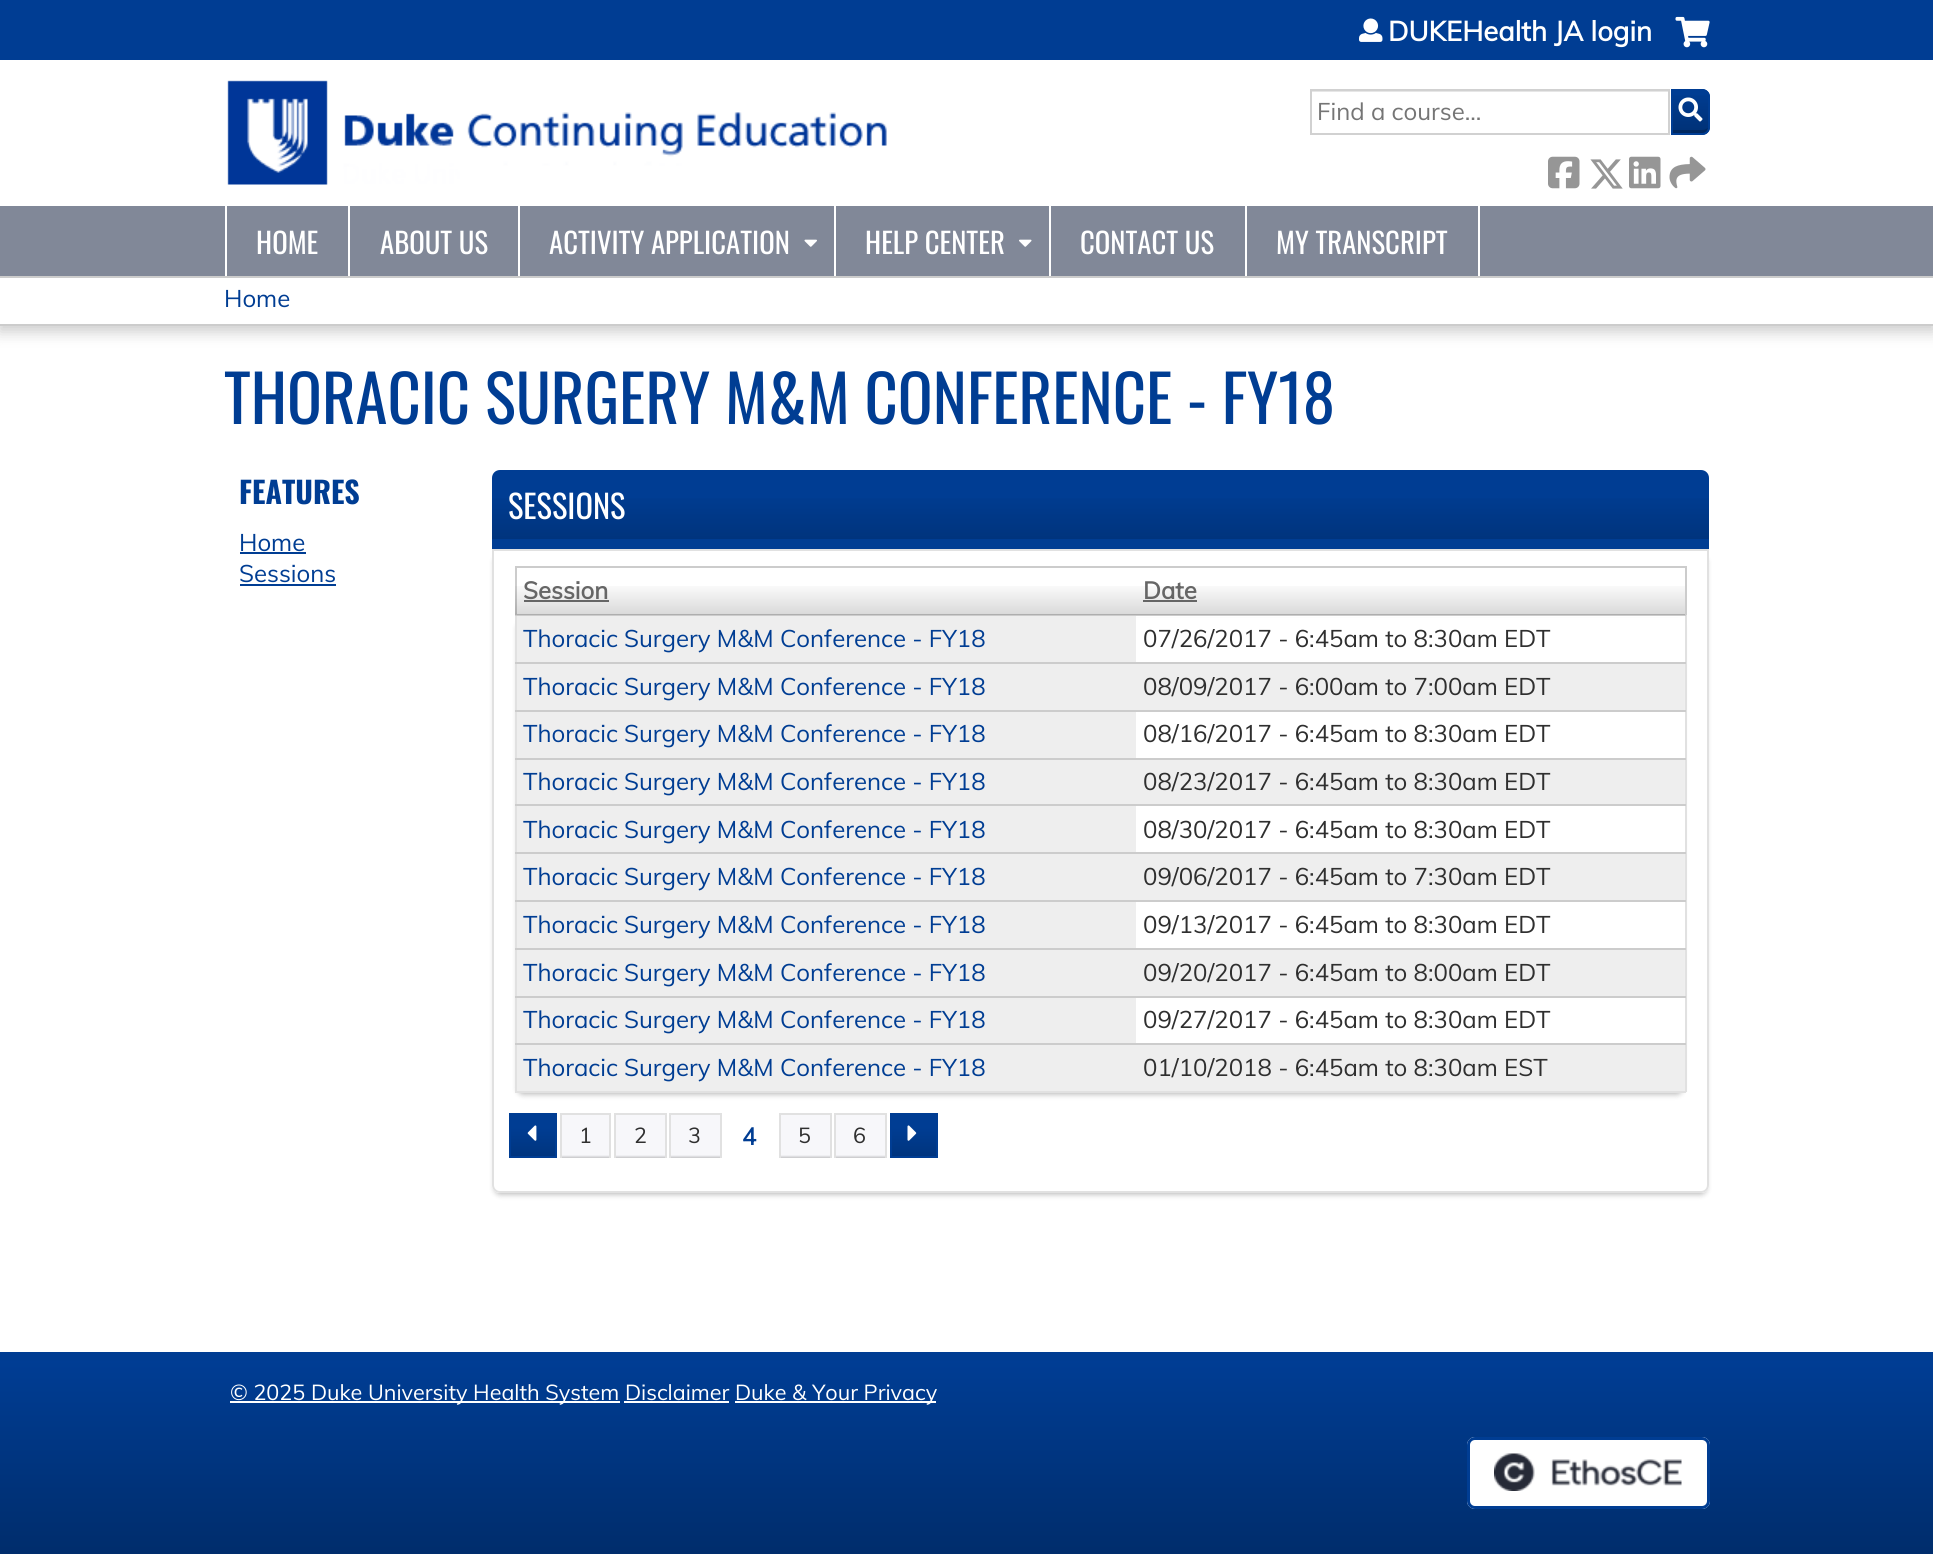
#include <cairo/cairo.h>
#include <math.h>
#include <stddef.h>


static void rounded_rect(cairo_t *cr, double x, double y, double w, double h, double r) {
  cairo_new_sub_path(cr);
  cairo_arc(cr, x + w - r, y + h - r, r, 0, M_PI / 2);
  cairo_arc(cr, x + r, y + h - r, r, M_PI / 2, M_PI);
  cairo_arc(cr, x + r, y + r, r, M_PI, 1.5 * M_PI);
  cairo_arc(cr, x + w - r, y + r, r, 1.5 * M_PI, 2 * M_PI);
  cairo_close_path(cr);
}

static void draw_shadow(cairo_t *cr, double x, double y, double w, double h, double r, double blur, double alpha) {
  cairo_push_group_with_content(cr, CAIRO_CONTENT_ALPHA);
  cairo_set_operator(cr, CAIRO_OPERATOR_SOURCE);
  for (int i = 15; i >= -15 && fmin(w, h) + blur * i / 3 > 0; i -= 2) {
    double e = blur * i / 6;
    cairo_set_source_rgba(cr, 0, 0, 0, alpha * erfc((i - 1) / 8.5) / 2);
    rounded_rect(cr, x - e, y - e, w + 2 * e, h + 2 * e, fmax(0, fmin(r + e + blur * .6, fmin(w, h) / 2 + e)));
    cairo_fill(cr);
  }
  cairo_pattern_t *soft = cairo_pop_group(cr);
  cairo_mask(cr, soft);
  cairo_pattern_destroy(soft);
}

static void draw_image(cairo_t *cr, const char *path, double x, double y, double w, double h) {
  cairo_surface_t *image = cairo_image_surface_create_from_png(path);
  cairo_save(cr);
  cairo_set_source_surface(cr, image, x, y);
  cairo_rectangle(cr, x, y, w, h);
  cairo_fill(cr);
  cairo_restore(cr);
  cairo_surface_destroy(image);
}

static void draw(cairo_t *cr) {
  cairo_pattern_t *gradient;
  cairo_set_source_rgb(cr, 1, 1, 1);
  cairo_paint(cr);
  cairo_set_source_rgb(cr, 0, 61 / 255.0, 147 / 255.0);
  cairo_rectangle(cr, 0, 0, 1933, 60);
  cairo_fill(cr);
  draw_image(cr, "images/1.png", 227, 80, 660, 105);
  draw_image(cr, "images/2.png", 1359, 18, 24, 24);
  draw_image(cr, "images/3.png", 1675, 16, 35, 32);
  cairo_new_path(cr);
  cairo_move_to(cr, 1671, 89);
  cairo_line_to(cr, 1702, 89);
  cairo_curve_to(cr, 1706.5, 89, 1710, 92.5, 1710, 97);
  cairo_line_to(cr, 1710, 127);
  cairo_curve_to(cr, 1710, 131.5, 1706.5, 135, 1702, 135);
  cairo_line_to(cr, 1671, 135);
  cairo_close_path(cr);
  cairo_fill(cr);
  cairo_save(cr);
  cairo_new_path(cr);
  cairo_move_to(cr, 1671, 89);
  cairo_line_to(cr, 1702, 89);
  cairo_curve_to(cr, 1706.5, 89, 1710, 92.5, 1710, 97);
  cairo_line_to(cr, 1710, 127);
  cairo_curve_to(cr, 1710, 131.5, 1706.5, 135, 1702, 135);
  cairo_line_to(cr, 1671, 135);
  cairo_close_path(cr);
  cairo_clip(cr);
  gradient = cairo_pattern_create_linear(1691, 134, 1691, 90);
  cairo_pattern_add_color_stop_rgba(gradient, 0, 0, 0, 0, 0.2);
  cairo_pattern_add_color_stop_rgba(gradient, 1, 0, 0, 0, 0);
  cairo_set_source(cr, gradient);
  cairo_pattern_destroy(gradient);
  cairo_rectangle(cr, 1673, 95, 37, 39);
  cairo_fill(cr);
  cairo_restore(cr);
  cairo_set_source_rgba(cr, 0, 0, 0, 0.2);
  cairo_new_path(cr);
  cairo_move_to(cr, 1673, 130);
  cairo_line_to(cr, 1673, 134);
  cairo_line_to(cr, 1693, 134);
  cairo_curve_to(cr, 1700, 134, 1709, 136.5, 1709, 126.5);
  cairo_curve_to(cr, 1707.5, 128.5, 1705.5, 130, 1702, 130);
  cairo_close_path(cr);
  cairo_fill(cr);
  cairo_new_path(cr);
  cairo_move_to(cr, 1672, 90);
  cairo_line_to(cr, 1702, 90);
  cairo_curve_to(cr, 1706, 90, 1709, 93, 1709, 97);
  cairo_line_to(cr, 1709, 127);
  cairo_curve_to(cr, 1709, 131, 1706, 134, 1702, 134);
  cairo_line_to(cr, 1672, 134);
  cairo_close_path(cr);
  cairo_set_source_rgb(cr, 0, 61 / 255.0, 147 / 255.0);
  cairo_stroke(cr);
  cairo_set_source_rgb(cr, 230 / 255.0, 230 / 255.0, 230 / 255.0);
  cairo_rectangle(cr, 1311, 91, 357, 1);
  cairo_fill(cr);
  cairo_rectangle(cr, 1311, 90, 358, 44);
  cairo_set_source_rgb(cr, 209 / 255.0, 209 / 255.0, 209 / 255.0);
  cairo_stroke(cr);
  draw_image(cr, "images/4.png", 1678, 97, 25, 25);
  draw_image(cr, "images/5.png", 1548, 156, 32, 33);
  draw_image(cr, "images/6.png", 1590, 159, 33, 30);
  draw_image(cr, "images/7.png", 1629, 156, 32, 33);
  draw_image(cr, "images/8.png", 1669, 156, 37, 33);
  cairo_set_source_rgb(cr, 0, 0, 0);
  draw_shadow(cr, -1, 279, 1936, 53, 0, 7.5, 0.2);
  cairo_set_source_rgb(cr, 129 / 255.0, 136 / 255.0, 152 / 255.0);
  cairo_rectangle(cr, 0, 206, 1933, 70);
  cairo_fill(cr);
  cairo_set_source_rgb(cr, 1, 1, 1);
  cairo_rectangle(cr, 348, 206, 2, 70);
  cairo_fill(cr);
  cairo_rectangle(cr, 225, 206, 2, 70);
  cairo_fill(cr);
  cairo_rectangle(cr, 518, 206, 2, 70);
  cairo_fill(cr);
  cairo_rectangle(cr, 834, 206, 2, 70);
  cairo_fill(cr);
  draw_image(cr, "images/9.png", 804, 239, 13, 8);
  cairo_rectangle(cr, 1049, 206, 2, 70);
  cairo_fill(cr);
  draw_image(cr, "images/10.png", 1019, 239, 13, 8);
  cairo_rectangle(cr, 1245, 206, 2, 70);
  cairo_fill(cr);
  cairo_rectangle(cr, 1478, 206, 2, 70);
  cairo_fill(cr);
  cairo_rectangle(cr, 0, 278, 1933, 46);
  cairo_fill(cr);
  cairo_set_source_rgb(cr, 204 / 255.0, 204 / 255.0, 204 / 255.0);
  cairo_rectangle(cr, 0, 276, 1933, 2);
  cairo_fill(cr);
  cairo_rectangle(cr, 0, 324, 1933, 2);
  cairo_fill(cr);
  cairo_set_source_rgb(cr, 0, 61 / 255.0, 147 / 255.0);
  cairo_rectangle(cr, 240, 552, 66, 2);
  cairo_fill(cr);
  cairo_rectangle(cr, 240, 584, 96, 2);
  cairo_fill(cr);
  cairo_new_path(cr);
  cairo_move_to(cr, 500, 470);
  cairo_line_to(cr, 1701, 470);
  cairo_curve_to(cr, 1705.5, 470, 1709, 473.5, 1709, 478);
  cairo_line_to(cr, 1709, 549);
  cairo_line_to(cr, 492, 549);
  cairo_line_to(cr, 492, 478);
  cairo_curve_to(cr, 492, 473.5, 495.5, 470, 500, 470);
  cairo_close_path(cr);
  cairo_fill(cr);
  gradient = cairo_pattern_create_linear(1100, 539, 1100, 470);
  cairo_pattern_add_color_stop_rgba(gradient, 0, 0, 0, 0, 0.15);
  cairo_pattern_add_color_stop_rgba(gradient, 0.7, 0, 0, 0, 0);
  cairo_set_source(cr, gradient);
  cairo_pattern_destroy(gradient);
  cairo_rectangle(cr, 492, 498, 1217, 41);
  cairo_fill(cr);
  cairo_save(cr);
  cairo_set_fill_rule(cr, CAIRO_FILL_RULE_EVEN_ODD);
  cairo_new_path(cr);
  cairo_move_to(cr, 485, 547);
  cairo_line_to(cr, 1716, 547);
  cairo_line_to(cr, 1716, 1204);
  cairo_line_to(cr, 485, 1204);
  cairo_close_path(cr);
  cairo_move_to(cr, 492, 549);
  cairo_line_to(cr, 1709, 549);
  cairo_line_to(cr, 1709, 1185);
  cairo_curve_to(cr, 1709, 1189.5, 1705.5, 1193, 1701, 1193);
  cairo_line_to(cr, 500, 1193);
  cairo_curve_to(cr, 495.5, 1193, 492, 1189.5, 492, 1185);
  cairo_close_path(cr);
  cairo_clip(cr);
  cairo_set_source_rgb(cr, 0, 0, 0);
  draw_shadow(cr, 495, 557, 1211, 637, 5, 3, 0.3);
  cairo_restore(cr);
  cairo_new_path(cr);
  cairo_move_to(cr, 493, 550);
  cairo_line_to(cr, 1708, 550);
  cairo_line_to(cr, 1708, 1185);
  cairo_curve_to(cr, 1708, 1189, 1705, 1192, 1701, 1192);
  cairo_line_to(cr, 500, 1192);
  cairo_curve_to(cr, 496, 1192, 493, 1189, 493, 1185);
  cairo_close_path(cr);
  cairo_set_source_rgb(cr, 225 / 255.0, 225 / 255.0, 225 / 255.0);
  cairo_stroke(cr);
  cairo_set_source_rgb(cr, 204 / 255.0, 204 / 255.0, 204 / 255.0);
  cairo_rectangle(cr, 515, 566, 1171, 2);
  cairo_fill(cr);
  cairo_set_source_rgb(cr, 0, 0, 0);
  draw_shadow(cr, 518, 623, 1164, 471, 5, 3, 0.3);
  cairo_set_source_rgb(cr, 225 / 255.0, 225 / 255.0, 225 / 255.0);
  cairo_rectangle(cr, 1685, 614, 2, 478);
  cairo_fill(cr);
  cairo_set_source_rgb(cr, 204 / 255.0, 204 / 255.0, 204 / 255.0);
  cairo_rectangle(cr, 1685, 566, 2, 49);
  cairo_fill(cr);
  cairo_set_source_rgb(cr, 225 / 255.0, 225 / 255.0, 225 / 255.0);
  cairo_rectangle(cr, 515, 1091, 1171, 2);
  cairo_fill(cr);
  cairo_rectangle(cr, 515, 614, 2, 478);
  cairo_fill(cr);
  cairo_set_source_rgb(cr, 204 / 255.0, 204 / 255.0, 204 / 255.0);
  cairo_rectangle(cr, 515, 614, 1171, 2);
  cairo_fill(cr);
  cairo_rectangle(cr, 515, 566, 2, 49);
  cairo_fill(cr);
  gradient = cairo_pattern_create_linear(825, 615, 825, 567);
  cairo_pattern_add_color_stop_rgba(gradient, 0, 0, 0, 0, 0.15);
  cairo_pattern_add_color_stop_rgba(gradient, 0.7, 0, 0, 0, 0);
  cairo_set_source(cr, gradient);
  cairo_pattern_destroy(gradient);
  cairo_rectangle(cr, 515, 586, 621, 29);
  cairo_fill(cr);
  cairo_set_source_rgb(cr, 102 / 255.0, 102 / 255.0, 102 / 255.0);
  cairo_rectangle(cr, 524, 600, 85, 2);
  cairo_fill(cr);
  gradient = cairo_pattern_create_linear(1410, 615, 1410, 567);
  cairo_pattern_add_color_stop_rgba(gradient, 0, 0, 0, 0, 0.15);
  cairo_pattern_add_color_stop_rgba(gradient, 0.7, 0, 0, 0, 0);
  cairo_set_source(cr, gradient);
  cairo_pattern_destroy(gradient);
  cairo_rectangle(cr, 1136, 586, 549, 29);
  cairo_fill(cr);
  cairo_set_source_rgb(cr, 102 / 255.0, 102 / 255.0, 102 / 255.0);
  cairo_rectangle(cr, 1143, 600, 54, 2);
  cairo_fill(cr);
  cairo_set_source_rgb(cr, 1, 1, 1);
  cairo_rectangle(cr, 1136, 618, 549, 44);
  cairo_fill(cr);
  cairo_set_source_rgb(cr, 238 / 255.0, 238 / 255.0, 238 / 255.0);
  cairo_rectangle(cr, 517, 616, 619, 46);
  cairo_fill(cr);
  cairo_rectangle(cr, 517, 664, 1167, 46);
  cairo_fill(cr);
  cairo_set_source_rgb(cr, 204 / 255.0, 204 / 255.0, 204 / 255.0);
  cairo_rectangle(cr, 515, 662, 1171, 2);
  cairo_fill(cr);
  cairo_set_source_rgb(cr, 1, 1, 1);
  cairo_rectangle(cr, 1136, 712, 549, 46);
  cairo_fill(cr);
  cairo_set_source_rgb(cr, 204 / 255.0, 204 / 255.0, 204 / 255.0);
  cairo_rectangle(cr, 515, 710, 1171, 2);
  cairo_fill(cr);
  cairo_set_source_rgb(cr, 238 / 255.0, 238 / 255.0, 238 / 255.0);
  cairo_rectangle(cr, 517, 712, 619, 46);
  cairo_fill(cr);
  cairo_rectangle(cr, 517, 760, 1167, 44);
  cairo_fill(cr);
  cairo_set_source_rgb(cr, 204 / 255.0, 204 / 255.0, 204 / 255.0);
  cairo_rectangle(cr, 515, 758, 1171, 2);
  cairo_fill(cr);
  cairo_set_source_rgb(cr, 1, 1, 1);
  cairo_rectangle(cr, 1136, 806, 549, 46);
  cairo_fill(cr);
  cairo_set_source_rgb(cr, 204 / 255.0, 204 / 255.0, 204 / 255.0);
  cairo_rectangle(cr, 515, 804, 1171, 2);
  cairo_fill(cr);
  cairo_set_source_rgb(cr, 238 / 255.0, 238 / 255.0, 238 / 255.0);
  cairo_rectangle(cr, 517, 806, 619, 46);
  cairo_fill(cr);
  cairo_rectangle(cr, 517, 854, 1167, 46);
  cairo_fill(cr);
  cairo_set_source_rgb(cr, 204 / 255.0, 204 / 255.0, 204 / 255.0);
  cairo_rectangle(cr, 515, 852, 1171, 2);
  cairo_fill(cr);
  cairo_set_source_rgb(cr, 1, 1, 1);
  cairo_rectangle(cr, 1136, 902, 549, 46);
  cairo_fill(cr);
  cairo_set_source_rgb(cr, 204 / 255.0, 204 / 255.0, 204 / 255.0);
  cairo_rectangle(cr, 515, 900, 1171, 2);
  cairo_fill(cr);
  cairo_set_source_rgb(cr, 238 / 255.0, 238 / 255.0, 238 / 255.0);
  cairo_rectangle(cr, 517, 902, 619, 46);
  cairo_fill(cr);
  cairo_rectangle(cr, 517, 950, 1167, 46);
  cairo_fill(cr);
  cairo_set_source_rgb(cr, 204 / 255.0, 204 / 255.0, 204 / 255.0);
  cairo_rectangle(cr, 515, 948, 1171, 2);
  cairo_fill(cr);
  cairo_set_source_rgb(cr, 1, 1, 1);
  cairo_rectangle(cr, 1136, 998, 549, 45);
  cairo_fill(cr);
  cairo_set_source_rgb(cr, 204 / 255.0, 204 / 255.0, 204 / 255.0);
  cairo_rectangle(cr, 515, 996, 1171, 2);
  cairo_fill(cr);
  cairo_set_source_rgb(cr, 238 / 255.0, 238 / 255.0, 238 / 255.0);
  cairo_rectangle(cr, 517, 998, 619, 45);
  cairo_fill(cr);
  cairo_rectangle(cr, 517, 1045, 1168, 46);
  cairo_fill(cr);
  cairo_set_source_rgb(cr, 204 / 255.0, 204 / 255.0, 204 / 255.0);
  cairo_rectangle(cr, 515, 1043, 1171, 2);
  cairo_fill(cr);
  gradient = cairo_pattern_create_linear(533, 1157, 533, 1115);
  cairo_pattern_add_color_stop_rgba(gradient, 0, 0, 52 / 255.0, 125 / 255.0, 1);
  cairo_pattern_add_color_stop_rgba(gradient, 0.7, 0, 61 / 255.0, 147 / 255.0, 1);
  cairo_set_source(cr, gradient);
  cairo_pattern_destroy(gradient);
  cairo_rectangle(cr, 511, 1115, 44, 41);
  cairo_fill(cr);
  cairo_rectangle(cr, 510, 1114, 46, 43);
  cairo_set_source_rgb(cr, 0, 61 / 255.0, 147 / 255.0);
  cairo_stroke(cr);
  draw_image(cr, "images/11.png", 527, 1125, 10, 16);
  gradient = cairo_pattern_create_linear(585, 1158, 585, 1115);
  cairo_pattern_add_color_stop_rgba(gradient, 0, 198 / 255.0, 198 / 255.0, 200 / 255.0, 1);
  cairo_pattern_add_color_stop_rgba(gradient, 0.07, 247 / 255.0, 247 / 255.0, 250 / 255.0, 1);
  cairo_set_source(cr, gradient);
  cairo_pattern_destroy(gradient);
  cairo_rectangle(cr, 562, 1115, 47, 43);
  cairo_fill(cr);
  cairo_set_source_rgb(cr, 225 / 255.0, 225 / 255.0, 225 / 255.0);
  cairo_rectangle(cr, 560, 1113, 51, 2);
  cairo_fill(cr);
  cairo_rectangle(cr, 609, 1113, 2, 45);
  cairo_fill(cr);
  cairo_rectangle(cr, 560, 1113, 2, 45);
  cairo_fill(cr);
  gradient = cairo_pattern_create_linear(640, 1158, 640, 1115);
  cairo_pattern_add_color_stop_rgba(gradient, 0, 198 / 255.0, 198 / 255.0, 200 / 255.0, 1);
  cairo_pattern_add_color_stop_rgba(gradient, 0.07, 247 / 255.0, 247 / 255.0, 250 / 255.0, 1);
  cairo_set_source(cr, gradient);
  cairo_pattern_destroy(gradient);
  cairo_rectangle(cr, 616, 1115, 49, 43);
  cairo_fill(cr);
  cairo_set_source_rgb(cr, 225 / 255.0, 225 / 255.0, 225 / 255.0);
  cairo_rectangle(cr, 614, 1113, 52, 2);
  cairo_fill(cr);
  cairo_rectangle(cr, 665, 1113, 2, 45);
  cairo_fill(cr);
  cairo_rectangle(cr, 614, 1113, 2, 45);
  cairo_fill(cr);
  gradient = cairo_pattern_create_linear(695, 1158, 695, 1115);
  cairo_pattern_add_color_stop_rgba(gradient, 0, 198 / 255.0, 198 / 255.0, 200 / 255.0, 1);
  cairo_pattern_add_color_stop_rgba(gradient, 0.07, 247 / 255.0, 247 / 255.0, 250 / 255.0, 1);
  cairo_set_source(cr, gradient);
  cairo_pattern_destroy(gradient);
  cairo_rectangle(cr, 671, 1115, 49, 43);
  cairo_fill(cr);
  cairo_set_source_rgb(cr, 225 / 255.0, 225 / 255.0, 225 / 255.0);
  cairo_rectangle(cr, 669, 1113, 53, 2);
  cairo_fill(cr);
  cairo_rectangle(cr, 720, 1113, 2, 45);
  cairo_fill(cr);
  cairo_rectangle(cr, 669, 1113, 2, 45);
  cairo_fill(cr);
  gradient = cairo_pattern_create_linear(805, 1158, 805, 1115);
  cairo_pattern_add_color_stop_rgba(gradient, 0, 198 / 255.0, 198 / 255.0, 200 / 255.0, 1);
  cairo_pattern_add_color_stop_rgba(gradient, 0.07, 247 / 255.0, 247 / 255.0, 250 / 255.0, 1);
  cairo_set_source(cr, gradient);
  cairo_pattern_destroy(gradient);
  cairo_rectangle(cr, 781, 1115, 49, 43);
  cairo_fill(cr);
  cairo_set_source_rgb(cr, 225 / 255.0, 225 / 255.0, 225 / 255.0);
  cairo_rectangle(cr, 779, 1113, 52, 2);
  cairo_fill(cr);
  cairo_rectangle(cr, 830, 1113, 2, 45);
  cairo_fill(cr);
  cairo_rectangle(cr, 779, 1113, 2, 45);
  cairo_fill(cr);
  gradient = cairo_pattern_create_linear(860, 1158, 860, 1115);
  cairo_pattern_add_color_stop_rgba(gradient, 0, 198 / 255.0, 198 / 255.0, 200 / 255.0, 1);
  cairo_pattern_add_color_stop_rgba(gradient, 0.07, 247 / 255.0, 247 / 255.0, 250 / 255.0, 1);
  cairo_set_source(cr, gradient);
  cairo_pattern_destroy(gradient);
  cairo_rectangle(cr, 836, 1115, 49, 43);
  cairo_fill(cr);
  cairo_set_source_rgb(cr, 225 / 255.0, 225 / 255.0, 225 / 255.0);
  cairo_rectangle(cr, 834, 1113, 53, 2);
  cairo_fill(cr);
  cairo_rectangle(cr, 885, 1113, 2, 45);
  cairo_fill(cr);
  cairo_rectangle(cr, 834, 1113, 2, 45);
  cairo_fill(cr);
  gradient = cairo_pattern_create_linear(914, 1157, 914, 1115);
  cairo_pattern_add_color_stop_rgba(gradient, 0, 0, 52 / 255.0, 125 / 255.0, 1);
  cairo_pattern_add_color_stop_rgba(gradient, 0.7, 0, 61 / 255.0, 147 / 255.0, 1);
  cairo_set_source(cr, gradient);
  cairo_pattern_destroy(gradient);
  cairo_rectangle(cr, 892, 1115, 44, 41);
  cairo_fill(cr);
  cairo_rectangle(cr, 891, 1114, 46, 43);
  cairo_set_source_rgb(cr, 0, 61 / 255.0, 147 / 255.0);
  cairo_stroke(cr);
  draw_image(cr, "images/12.png", 907, 1125, 10, 16);
  gradient = cairo_pattern_create_linear(967, 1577, 967, 1361);
  cairo_pattern_add_color_stop_rgba(gradient, 0, 0, 43 / 255.0, 103 / 255.0, 1);
  cairo_pattern_add_color_stop_rgba(gradient, 1, 0, 61 / 255.0, 148 / 255.0, 1);
  cairo_set_source(cr, gradient);
  cairo_pattern_destroy(gradient);
  cairo_rectangle(cr, 0, 1361, 1933, 193);
  cairo_fill(cr);
  cairo_set_source_rgb(cr, 0, 61 / 255.0, 147 / 255.0);
  cairo_rectangle(cr, 0, 1352, 1933, 9);
  cairo_fill(cr);
  cairo_set_source_rgb(cr, 1, 1, 1);
  cairo_rectangle(cr, 230, 1401, 390, 2);
  cairo_fill(cr);
  cairo_rectangle(cr, 735, 1401, 201, 2);
  cairo_fill(cr);
  cairo_rectangle(cr, 624, 1401, 105, 2);
  cairo_fill(cr);
  rounded_rect(cr, 1467, 1437, 243, 72, 8);
  cairo_fill(cr);
  draw_image(cr, "images/13.png", 1494, 1453, 188, 38);
  rounded_rect(cr, 1468.5, 1438.5, 240, 69, 6.5);
  cairo_set_source_rgb(cr, 0, 61 / 255.0, 147 / 255.0);
  cairo_set_line_width(cr, 3);
  cairo_stroke(cr);
  cairo_select_font_face(cr, "Muli", CAIRO_FONT_SLANT_NORMAL, CAIRO_FONT_WEIGHT_BOLD);
  cairo_set_font_size(cr, 27.5);
  cairo_set_source_rgb(cr, 1, 1, 1);
  cairo_move_to(cr, 1388, 41);
  cairo_show_text(cr, "DUKEHealth JA login");
  cairo_select_font_face(cr, "Muli", CAIRO_FONT_SLANT_NORMAL, CAIRO_FONT_WEIGHT_NORMAL);
  cairo_set_font_size(cr, 24);
  cairo_set_source_rgb(cr, 117 / 255.0, 117 / 255.0, 117 / 255.0);
  cairo_move_to(cr, 1317, 120);
  cairo_show_text(cr, "Find a course...");
  cairo_select_font_face(cr, "Oswald", CAIRO_FONT_SLANT_NORMAL, CAIRO_FONT_WEIGHT_NORMAL);
  cairo_set_font_size(cr, 28.75);
  cairo_set_source_rgb(cr, 1, 1, 1);
  cairo_move_to(cr, 256, 254);
  cairo_show_text(cr, "HOME");
  cairo_move_to(cr, 380, 254);
  cairo_show_text(cr, "ABOUT US");
  cairo_move_to(cr, 549, 254);
  cairo_show_text(cr, "ACTIVITY APPLICATION");
  cairo_move_to(cr, 865, 254);
  cairo_show_text(cr, "HELP CENTER");
  cairo_move_to(cr, 1080, 254);
  cairo_show_text(cr, "CONTACT US");
  cairo_move_to(cr, 1276, 254);
  cairo_show_text(cr, "MY TRANSCRIPT");
  cairo_select_font_face(cr, "Muli", CAIRO_FONT_SLANT_NORMAL, CAIRO_FONT_WEIGHT_NORMAL);
  cairo_set_font_size(cr, 24);
  cairo_set_source_rgb(cr, 0, 61 / 255.0, 147 / 255.0);
  cairo_move_to(cr, 224, 307);
  cairo_show_text(cr, "Home");
  cairo_select_font_face(cr, "Oswald", CAIRO_FONT_SLANT_NORMAL, CAIRO_FONT_WEIGHT_NORMAL);
  cairo_set_font_size(cr, 64.75);
  cairo_move_to(cr, 224, 424);
  cairo_show_text(cr, "THORACIC SURGERY M&M CONFERENCE - FY18");
  cairo_select_font_face(cr, "Oswald", CAIRO_FONT_SLANT_NORMAL, CAIRO_FONT_WEIGHT_BOLD);
  cairo_set_font_size(cr, 30);
  cairo_move_to(cr, 239, 504);
  cairo_show_text(cr, "FEATURES");
  cairo_select_font_face(cr, "Muli", CAIRO_FONT_SLANT_NORMAL, CAIRO_FONT_WEIGHT_NORMAL);
  cairo_set_font_size(cr, 24);
  cairo_move_to(cr, 239, 551);
  cairo_show_text(cr, "Home");
  cairo_move_to(cr, 239, 582);
  cairo_show_text(cr, "Sessions");
  cairo_select_font_face(cr, "Oswald", CAIRO_FONT_SLANT_NORMAL, CAIRO_FONT_WEIGHT_NORMAL);
  cairo_set_font_size(cr, 32.5);
  cairo_set_source_rgb(cr, 1, 1, 1);
  cairo_move_to(cr, 508, 519);
  cairo_show_text(cr, "SESSIONS");
  cairo_select_font_face(cr, "Muli", CAIRO_FONT_SLANT_NORMAL, CAIRO_FONT_WEIGHT_BOLD);
  cairo_set_font_size(cr, 24);
  cairo_set_source_rgb(cr, 102 / 255.0, 102 / 255.0, 102 / 255.0);
  cairo_move_to(cr, 523, 599);
  cairo_show_text(cr, "Session");
  cairo_move_to(cr, 1143, 599);
  cairo_show_text(cr, "Date");
  cairo_select_font_face(cr, "Muli", CAIRO_FONT_SLANT_NORMAL, CAIRO_FONT_WEIGHT_NORMAL);
  cairo_set_source_rgb(cr, 0, 61 / 255.0, 147 / 255.0);
  cairo_move_to(cr, 523, 647);
  cairo_show_text(cr, "Thoracic Surgery M&M Conference - FY18");
  cairo_set_source_rgb(cr, 47 / 255.0, 47 / 255.0, 47 / 255.0);
  cairo_move_to(cr, 1143, 647);
  cairo_show_text(cr, "07/26/2017 - 6:45am to 8:30am EDT");
  cairo_set_source_rgb(cr, 0, 61 / 255.0, 147 / 255.0);
  cairo_move_to(cr, 523, 695);
  cairo_show_text(cr, "Thoracic Surgery M&M Conference - FY18");
  cairo_set_source_rgb(cr, 47 / 255.0, 47 / 255.0, 47 / 255.0);
  cairo_move_to(cr, 1143, 695);
  cairo_show_text(cr, "08/09/2017 - 6:00am to 7:00am EDT");
  cairo_set_source_rgb(cr, 0, 61 / 255.0, 147 / 255.0);
  cairo_move_to(cr, 523, 742);
  cairo_show_text(cr, "Thoracic Surgery M&M Conference - FY18");
  cairo_set_source_rgb(cr, 47 / 255.0, 47 / 255.0, 47 / 255.0);
  cairo_move_to(cr, 1143, 742);
  cairo_show_text(cr, "08/16/2017 - 6:45am to 8:30am EDT");
  cairo_set_source_rgb(cr, 0, 61 / 255.0, 147 / 255.0);
  cairo_move_to(cr, 523, 790);
  cairo_show_text(cr, "Thoracic Surgery M&M Conference - FY18");
  cairo_set_source_rgb(cr, 47 / 255.0, 47 / 255.0, 47 / 255.0);
  cairo_move_to(cr, 1143, 790);
  cairo_show_text(cr, "08/23/2017 - 6:45am to 8:30am EDT");
  cairo_set_source_rgb(cr, 0, 61 / 255.0, 147 / 255.0);
  cairo_move_to(cr, 523, 838);
  cairo_show_text(cr, "Thoracic Surgery M&M Conference - FY18");
  cairo_set_source_rgb(cr, 47 / 255.0, 47 / 255.0, 47 / 255.0);
  cairo_move_to(cr, 1143, 838);
  cairo_show_text(cr, "08/30/2017 - 6:45am to 8:30am EDT");
  cairo_set_source_rgb(cr, 0, 61 / 255.0, 147 / 255.0);
  cairo_move_to(cr, 523, 885);
  cairo_show_text(cr, "Thoracic Surgery M&M Conference - FY18");
  cairo_set_source_rgb(cr, 47 / 255.0, 47 / 255.0, 47 / 255.0);
  cairo_move_to(cr, 1143, 885);
  cairo_show_text(cr, "09/06/2017 - 6:45am to 7:30am EDT");
  cairo_set_source_rgb(cr, 0, 61 / 255.0, 147 / 255.0);
  cairo_move_to(cr, 523, 933);
  cairo_show_text(cr, "Thoracic Surgery M&M Conference - FY18");
  cairo_set_source_rgb(cr, 47 / 255.0, 47 / 255.0, 47 / 255.0);
  cairo_move_to(cr, 1143, 933);
  cairo_show_text(cr, "09/13/2017 - 6:45am to 8:30am EDT");
  cairo_set_source_rgb(cr, 0, 61 / 255.0, 147 / 255.0);
  cairo_move_to(cr, 523, 981);
  cairo_show_text(cr, "Thoracic Surgery M&M Conference - FY18");
  cairo_set_source_rgb(cr, 47 / 255.0, 47 / 255.0, 47 / 255.0);
  cairo_move_to(cr, 1143, 981);
  cairo_show_text(cr, "09/20/2017 - 6:45am to 8:00am EDT");
  cairo_set_source_rgb(cr, 0, 61 / 255.0, 147 / 255.0);
  cairo_move_to(cr, 523, 1028);
  cairo_show_text(cr, "Thoracic Surgery M&M Conference - FY18");
  cairo_set_source_rgb(cr, 47 / 255.0, 47 / 255.0, 47 / 255.0);
  cairo_move_to(cr, 1143, 1028);
  cairo_show_text(cr, "09/27/2017 - 6:45am to 8:30am EDT");
  cairo_set_source_rgb(cr, 0, 61 / 255.0, 147 / 255.0);
  cairo_move_to(cr, 523, 1076);
  cairo_show_text(cr, "Thoracic Surgery M&M Conference - FY18");
  cairo_set_source_rgb(cr, 47 / 255.0, 47 / 255.0, 47 / 255.0);
  cairo_move_to(cr, 1143, 1076);
  cairo_show_text(cr, "01/10/2018 - 6:45am to 8:30am EST");
  cairo_set_font_size(cr, 21.6);
  cairo_move_to(cr, 579, 1143);
  cairo_show_text(cr, "1");
  cairo_move_to(cr, 634, 1143);
  cairo_show_text(cr, "2");
  cairo_move_to(cr, 688, 1143);
  cairo_show_text(cr, "3");
  cairo_select_font_face(cr, "Muli", CAIRO_FONT_SLANT_NORMAL, CAIRO_FONT_WEIGHT_BOLD);
  cairo_set_font_size(cr, 24);
  cairo_set_source_rgb(cr, 0, 61 / 255.0, 147 / 255.0);
  cairo_move_to(cr, 742, 1145);
  cairo_show_text(cr, "4");
  cairo_select_font_face(cr, "Muli", CAIRO_FONT_SLANT_NORMAL, CAIRO_FONT_WEIGHT_NORMAL);
  cairo_set_font_size(cr, 21.6);
  cairo_set_source_rgb(cr, 47 / 255.0, 47 / 255.0, 47 / 255.0);
  cairo_move_to(cr, 798, 1143);
  cairo_show_text(cr, "5");
  cairo_move_to(cr, 853, 1143);
  cairo_show_text(cr, "6");
  cairo_set_source_rgb(cr, 1, 1, 1);
  cairo_move_to(cr, 230, 1400);
  cairo_show_text(cr, "© 2025 Duke University Health System Disclaimer");
  cairo_move_to(cr, 735, 1400);
  cairo_show_text(cr, "Duke & Your Privacy");
}

int main(void) {
  cairo_surface_t *surface = cairo_image_surface_create(CAIRO_FORMAT_RGB24, 1933, 1554);
  cairo_t *cr = cairo_create(surface);
  cairo_font_options_t *options = cairo_font_options_create();
  cairo_font_options_set_hint_metrics(options, CAIRO_HINT_METRICS_OFF);
  cairo_font_options_set_hint_style(options, CAIRO_HINT_STYLE_NONE);
  cairo_set_font_options(cr, options);
  cairo_set_miter_limit(cr, 4);
  draw(cr);
  cairo_surface_write_to_png(surface, "out.png");
  cairo_font_options_destroy(options);
  cairo_destroy(cr);
  cairo_surface_destroy(surface);
  return 0;
}
